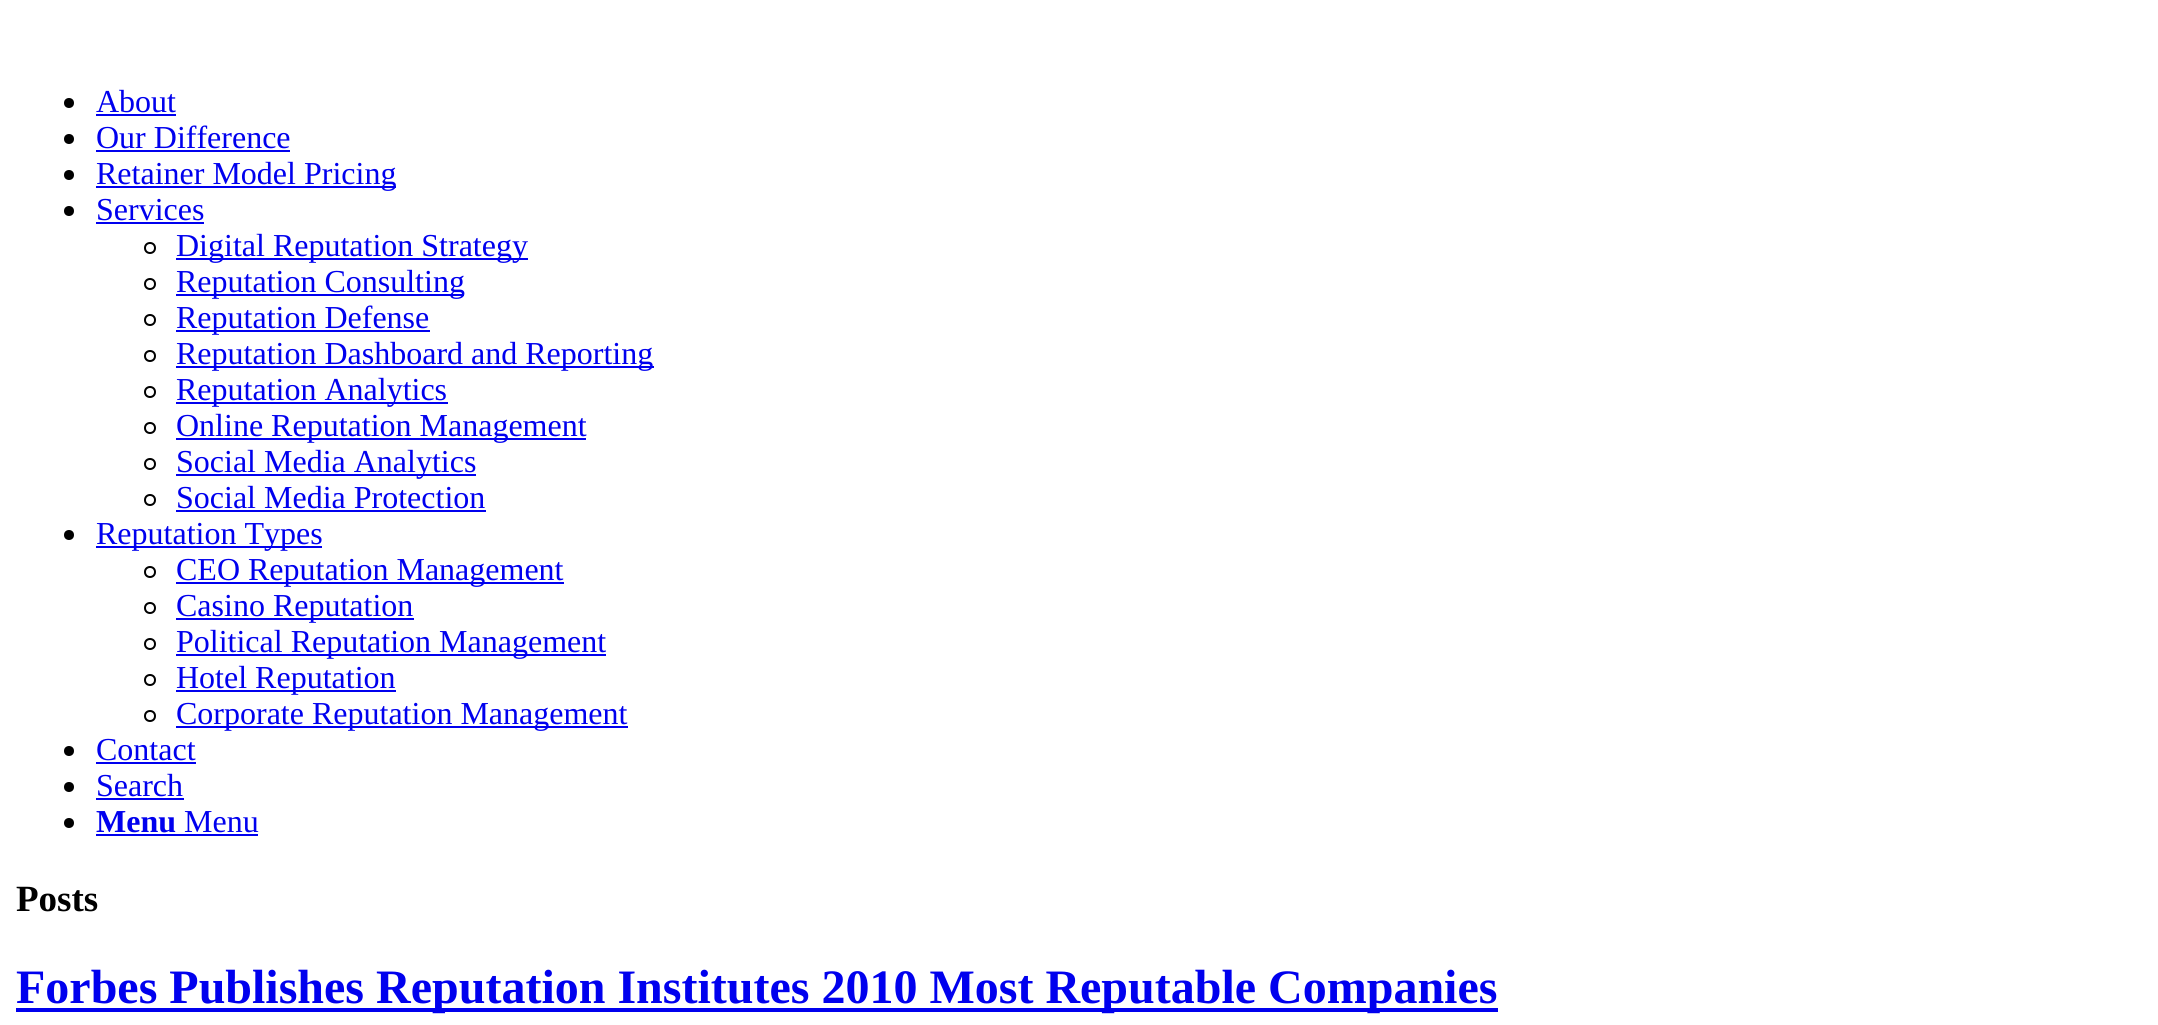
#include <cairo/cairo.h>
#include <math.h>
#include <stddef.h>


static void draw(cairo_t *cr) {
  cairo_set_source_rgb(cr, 1, 1, 1);
  cairo_paint(cr);
  cairo_set_source_rgb(cr, 0, 0, 0);
  cairo_arc(cr, 69, 103, 5, 0, 2 * M_PI);
  cairo_fill(cr);
  cairo_set_source_rgb(cr, 0, 0, 238 / 255.0);
  cairo_rectangle(cr, 96, 114, 80, 2);
  cairo_fill(cr);
  cairo_set_source_rgb(cr, 0, 0, 0);
  cairo_arc(cr, 69, 139, 5, 0, 2 * M_PI);
  cairo_fill(cr);
  cairo_set_source_rgb(cr, 0, 0, 238 / 255.0);
  cairo_rectangle(cr, 96, 150, 194, 2);
  cairo_fill(cr);
  cairo_set_source_rgb(cr, 0, 0, 0);
  cairo_arc(cr, 69, 175, 5, 0, 2 * M_PI);
  cairo_fill(cr);
  cairo_set_source_rgb(cr, 0, 0, 238 / 255.0);
  cairo_rectangle(cr, 96, 186, 300, 2);
  cairo_fill(cr);
  cairo_set_source_rgb(cr, 0, 0, 0);
  cairo_arc(cr, 69, 211, 5, 0, 2 * M_PI);
  cairo_fill(cr);
  cairo_set_source_rgb(cr, 0, 0, 238 / 255.0);
  cairo_rectangle(cr, 96, 222, 108, 2);
  cairo_fill(cr);
  cairo_arc(cr, 150, 248, 5, 0, 2 * M_PI);
  cairo_set_source_rgb(cr, 0, 0, 0);
  cairo_stroke(cr);
  cairo_set_source_rgb(cr, 0, 0, 238 / 255.0);
  cairo_rectangle(cr, 176, 258, 352, 2);
  cairo_fill(cr);
  cairo_arc(cr, 150, 284, 5, 0, 2 * M_PI);
  cairo_set_source_rgb(cr, 0, 0, 0);
  cairo_stroke(cr);
  cairo_set_source_rgb(cr, 0, 0, 238 / 255.0);
  cairo_rectangle(cr, 176, 294, 288, 2);
  cairo_fill(cr);
  cairo_arc(cr, 150, 320, 5, 0, 2 * M_PI);
  cairo_set_source_rgb(cr, 0, 0, 0);
  cairo_stroke(cr);
  cairo_set_source_rgb(cr, 0, 0, 238 / 255.0);
  cairo_rectangle(cr, 176, 330, 254, 2);
  cairo_fill(cr);
  cairo_arc(cr, 150, 356, 5, 0, 2 * M_PI);
  cairo_set_source_rgb(cr, 0, 0, 0);
  cairo_stroke(cr);
  cairo_set_source_rgb(cr, 0, 0, 238 / 255.0);
  cairo_rectangle(cr, 176, 366, 478, 2);
  cairo_fill(cr);
  cairo_arc(cr, 150, 392, 5, 0, 2 * M_PI);
  cairo_set_source_rgb(cr, 0, 0, 0);
  cairo_stroke(cr);
  cairo_set_source_rgb(cr, 0, 0, 238 / 255.0);
  cairo_rectangle(cr, 176, 402, 272, 2);
  cairo_fill(cr);
  cairo_arc(cr, 150, 428, 5, 0, 2 * M_PI);
  cairo_set_source_rgb(cr, 0, 0, 0);
  cairo_stroke(cr);
  cairo_set_source_rgb(cr, 0, 0, 238 / 255.0);
  cairo_rectangle(cr, 176, 438, 410, 2);
  cairo_fill(cr);
  cairo_arc(cr, 150, 464, 5, 0, 2 * M_PI);
  cairo_set_source_rgb(cr, 0, 0, 0);
  cairo_stroke(cr);
  cairo_set_source_rgb(cr, 0, 0, 238 / 255.0);
  cairo_rectangle(cr, 176, 474, 300, 2);
  cairo_fill(cr);
  cairo_arc(cr, 150, 500, 5, 0, 2 * M_PI);
  cairo_set_source_rgb(cr, 0, 0, 0);
  cairo_stroke(cr);
  cairo_set_source_rgb(cr, 0, 0, 238 / 255.0);
  cairo_rectangle(cr, 176, 510, 310, 2);
  cairo_fill(cr);
  cairo_set_source_rgb(cr, 0, 0, 0);
  cairo_arc(cr, 69, 535, 5, 0, 2 * M_PI);
  cairo_fill(cr);
  cairo_set_source_rgb(cr, 0, 0, 238 / 255.0);
  cairo_rectangle(cr, 96, 546, 226, 2);
  cairo_fill(cr);
  cairo_arc(cr, 150, 572, 5, 0, 2 * M_PI);
  cairo_set_source_rgb(cr, 0, 0, 0);
  cairo_stroke(cr);
  cairo_set_source_rgb(cr, 0, 0, 238 / 255.0);
  cairo_rectangle(cr, 176, 582, 388, 2);
  cairo_fill(cr);
  cairo_arc(cr, 150, 608, 5, 0, 2 * M_PI);
  cairo_set_source_rgb(cr, 0, 0, 0);
  cairo_stroke(cr);
  cairo_set_source_rgb(cr, 0, 0, 238 / 255.0);
  cairo_rectangle(cr, 176, 618, 238, 2);
  cairo_fill(cr);
  cairo_arc(cr, 150, 644, 5, 0, 2 * M_PI);
  cairo_set_source_rgb(cr, 0, 0, 0);
  cairo_stroke(cr);
  cairo_set_source_rgb(cr, 0, 0, 238 / 255.0);
  cairo_rectangle(cr, 176, 654, 430, 2);
  cairo_fill(cr);
  cairo_arc(cr, 150, 680, 5, 0, 2 * M_PI);
  cairo_set_source_rgb(cr, 0, 0, 0);
  cairo_stroke(cr);
  cairo_set_source_rgb(cr, 0, 0, 238 / 255.0);
  cairo_rectangle(cr, 176, 690, 220, 2);
  cairo_fill(cr);
  cairo_arc(cr, 150, 716, 5, 0, 2 * M_PI);
  cairo_set_source_rgb(cr, 0, 0, 0);
  cairo_stroke(cr);
  cairo_set_source_rgb(cr, 0, 0, 238 / 255.0);
  cairo_rectangle(cr, 176, 726, 452, 2);
  cairo_fill(cr);
  cairo_set_source_rgb(cr, 0, 0, 0);
  cairo_arc(cr, 69, 751, 5, 0, 2 * M_PI);
  cairo_fill(cr);
  cairo_set_source_rgb(cr, 0, 0, 238 / 255.0);
  cairo_rectangle(cr, 96, 762, 100, 2);
  cairo_fill(cr);
  cairo_set_source_rgb(cr, 0, 0, 0);
  cairo_arc(cr, 69, 787, 5, 0, 2 * M_PI);
  cairo_fill(cr);
  cairo_set_source_rgb(cr, 0, 0, 238 / 255.0);
  cairo_rectangle(cr, 96, 798, 88, 2);
  cairo_fill(cr);
  cairo_set_source_rgb(cr, 0, 0, 0);
  cairo_arc(cr, 69, 823, 5, 0, 2 * M_PI);
  cairo_fill(cr);
  cairo_set_source_rgb(cr, 0, 0, 238 / 255.0);
  cairo_rectangle(cr, 96, 834, 162, 2);
  cairo_fill(cr);
  cairo_rectangle(cr, 16, 1008, 1482, 4);
  cairo_fill(cr);
  cairo_select_font_face(cr, "Liberation Serif", CAIRO_FONT_SLANT_NORMAL, CAIRO_FONT_WEIGHT_NORMAL);
  cairo_set_font_size(cr, 32);
  cairo_move_to(cr, 96, 112);
  cairo_show_text(cr, "About");
  cairo_move_to(cr, 96, 148);
  cairo_show_text(cr, "Our Difference");
  cairo_move_to(cr, 96, 184);
  cairo_show_text(cr, "Retainer Model Pricing");
  cairo_move_to(cr, 96, 220);
  cairo_show_text(cr, "Services");
  cairo_move_to(cr, 176, 256);
  cairo_show_text(cr, "Digital Reputation Strategy");
  cairo_move_to(cr, 176, 292);
  cairo_show_text(cr, "Reputation Consulting");
  cairo_move_to(cr, 176, 328);
  cairo_show_text(cr, "Reputation Defense");
  cairo_move_to(cr, 176, 364);
  cairo_show_text(cr, "Reputation Dashboard and Reporting");
  cairo_move_to(cr, 176, 400);
  cairo_show_text(cr, "Reputation Analytics");
  cairo_move_to(cr, 176, 436);
  cairo_show_text(cr, "Online Reputation Management");
  cairo_move_to(cr, 176, 472);
  cairo_show_text(cr, "Social Media Analytics");
  cairo_move_to(cr, 176, 508);
  cairo_show_text(cr, "Social Media Protection");
  cairo_move_to(cr, 96, 544);
  cairo_show_text(cr, "Reputation Types");
  cairo_move_to(cr, 176, 580);
  cairo_show_text(cr, "CEO Reputation Management");
  cairo_move_to(cr, 176, 616);
  cairo_show_text(cr, "Casino Reputation");
  cairo_move_to(cr, 176, 652);
  cairo_show_text(cr, "Political Reputation Management");
  cairo_move_to(cr, 176, 688);
  cairo_show_text(cr, "Hotel Reputation");
  cairo_move_to(cr, 176, 724);
  cairo_show_text(cr, "Corporate Reputation Management");
  cairo_move_to(cr, 96, 760);
  cairo_show_text(cr, "Contact");
  cairo_move_to(cr, 96, 796);
  cairo_show_text(cr, "Search");
  cairo_select_font_face(cr, "Liberation Serif", CAIRO_FONT_SLANT_NORMAL, CAIRO_FONT_WEIGHT_BOLD);
  cairo_move_to(cr, 96, 832);
  cairo_show_text(cr, "Menu");
  cairo_select_font_face(cr, "Liberation Serif", CAIRO_FONT_SLANT_NORMAL, CAIRO_FONT_WEIGHT_NORMAL);
  cairo_move_to(cr, 184, 832);
  cairo_show_text(cr, "Menu");
  cairo_select_font_face(cr, "Liberation Serif", CAIRO_FONT_SLANT_NORMAL, CAIRO_FONT_WEIGHT_BOLD);
  cairo_set_font_size(cr, 37);
  cairo_set_source_rgb(cr, 0, 0, 0);
  cairo_move_to(cr, 16, 911);
  cairo_show_text(cr, "Posts");
  cairo_set_font_size(cr, 48);
  cairo_set_source_rgb(cr, 0, 0, 238 / 255.0);
  cairo_move_to(cr, 16, 1003);
  cairo_show_text(cr, "Forbes Publishes Reputation Institutes 2010 Most Reputable Companies");
}

int main(void) {
  cairo_surface_t *surface = cairo_image_surface_create(CAIRO_FORMAT_RGB24, 2158, 1025);
  cairo_t *cr = cairo_create(surface);
  cairo_font_options_t *options = cairo_font_options_create();
  cairo_font_options_set_hint_metrics(options, CAIRO_HINT_METRICS_OFF);
  cairo_font_options_set_hint_style(options, CAIRO_HINT_STYLE_NONE);
  cairo_set_font_options(cr, options);
  cairo_set_miter_limit(cr, 4);
  draw(cr);
  cairo_surface_write_to_png(surface, "out.png");
  cairo_font_options_destroy(options);
  cairo_destroy(cr);
  cairo_surface_destroy(surface);
  return 0;
}
